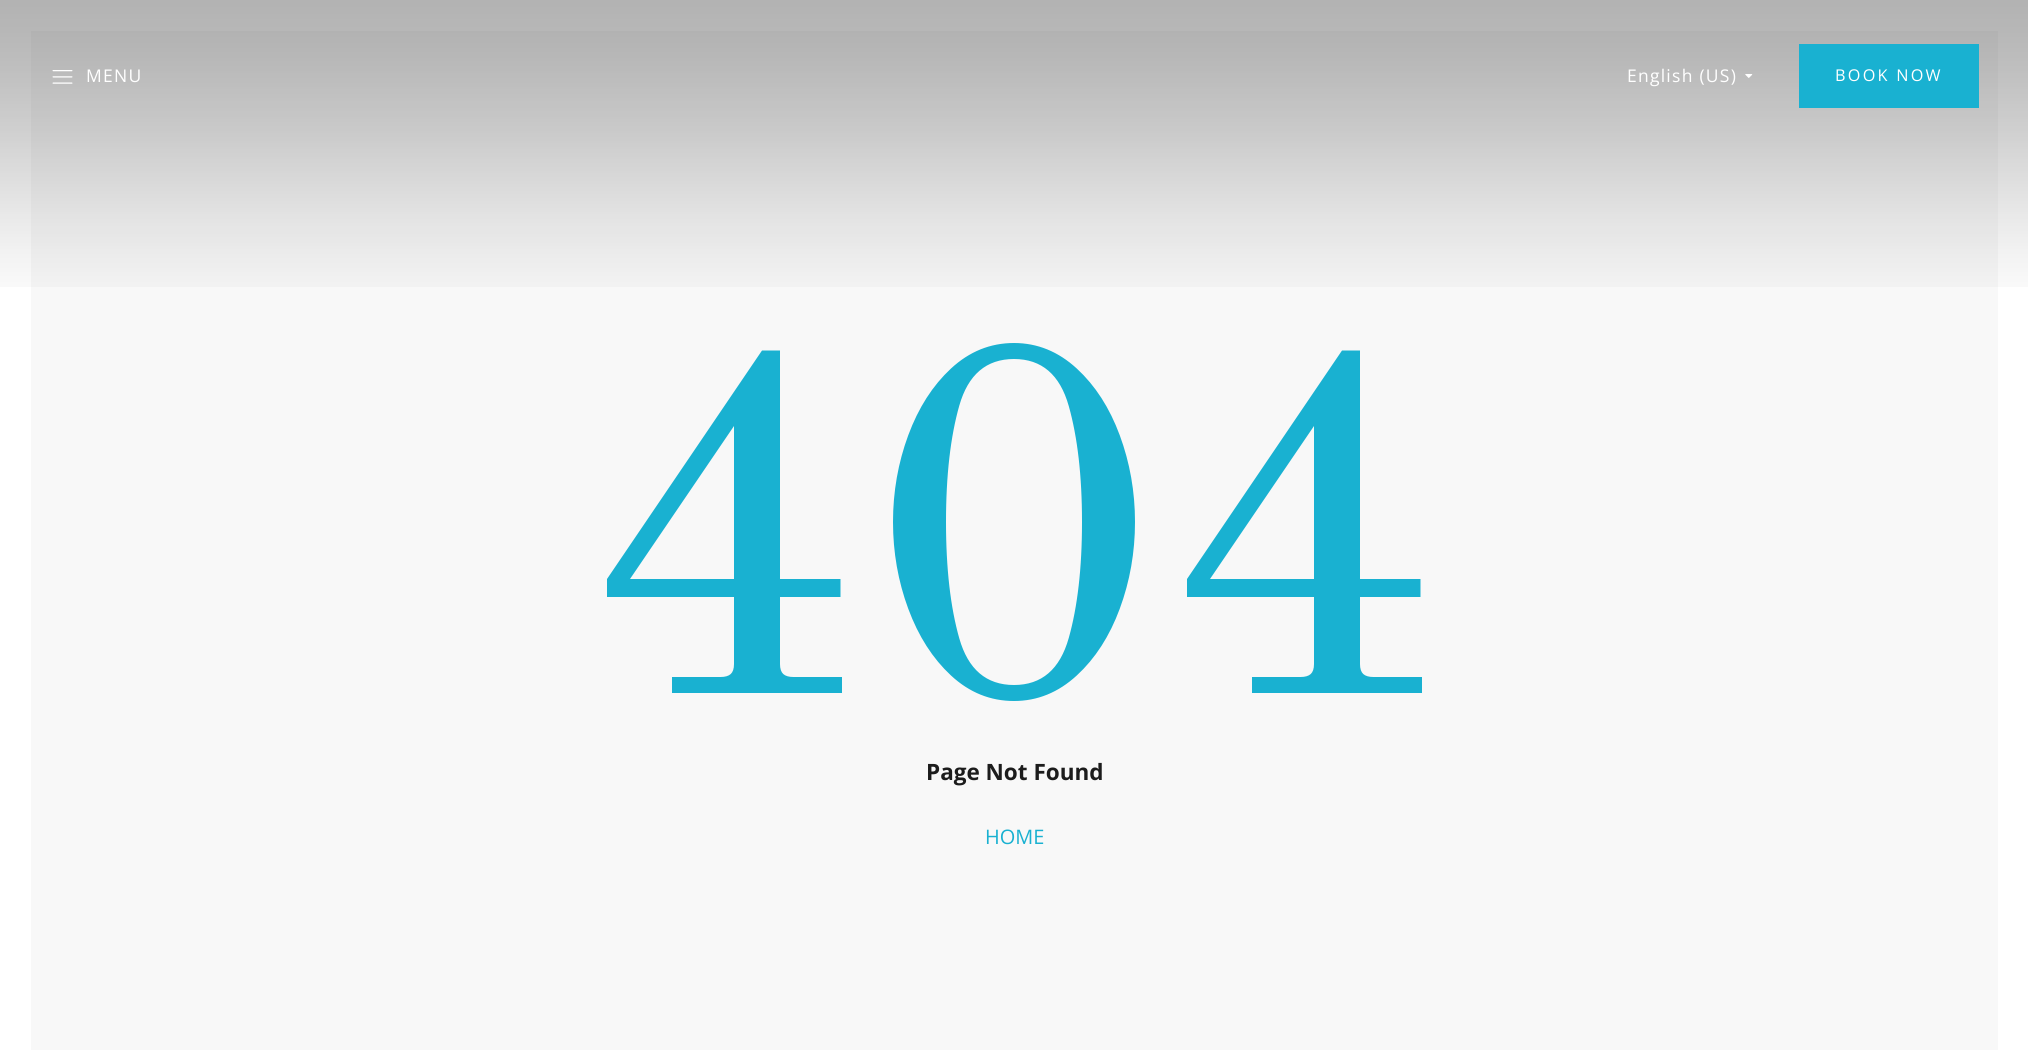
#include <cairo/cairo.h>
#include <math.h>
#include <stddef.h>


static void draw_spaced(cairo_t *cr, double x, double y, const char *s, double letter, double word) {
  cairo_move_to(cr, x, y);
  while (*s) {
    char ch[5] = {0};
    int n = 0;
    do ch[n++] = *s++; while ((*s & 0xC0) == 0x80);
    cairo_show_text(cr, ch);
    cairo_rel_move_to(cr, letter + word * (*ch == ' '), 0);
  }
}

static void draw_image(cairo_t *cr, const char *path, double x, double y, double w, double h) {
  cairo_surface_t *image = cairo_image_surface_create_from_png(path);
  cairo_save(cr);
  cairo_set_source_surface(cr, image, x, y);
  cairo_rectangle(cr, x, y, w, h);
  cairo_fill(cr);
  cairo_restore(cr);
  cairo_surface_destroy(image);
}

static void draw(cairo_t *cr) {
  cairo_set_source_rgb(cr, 1, 1, 1);
  cairo_paint(cr);
  cairo_set_source_rgb(cr, 248 / 255.0, 248 / 255.0, 248 / 255.0);
  cairo_rectangle(cr, 31, 31, 1967, 1019);
  cairo_fill(cr);
  draw_image(cr, "images/1.png", 0, 0, 2028, 287);
  draw_image(cr, "images/2.png", 52, 70, 21, 14);
  draw_image(cr, "images/3.png", 1745, 74, 8, 4);
  cairo_set_source_rgb(cr, 25 / 255.0, 177 / 255.0, 209 / 255.0);
  cairo_rectangle(cr, 1799, 44, 180, 64);
  cairo_fill(cr);
  cairo_select_font_face(cr, "Open Sans", CAIRO_FONT_SLANT_NORMAL, CAIRO_FONT_WEIGHT_NORMAL);
  cairo_set_font_size(cr, 17.5);
  cairo_set_source_rgb(cr, 1, 1, 1);
  draw_spaced(cr, 86, 82, "MENU", 1.25, 0);
  draw_spaced(cr, 1627, 82, "English (US)", 1.25, 0);
  cairo_set_font_size(cr, 16.25);
  draw_spaced(cr, 1835, 81, "BOOK NOW", 2.25, 0);
  cairo_select_font_face(cr, "Old Standard TT", CAIRO_FONT_SLANT_NORMAL, CAIRO_FONT_WEIGHT_NORMAL);
  cairo_set_font_size(cr, 500);
  cairo_set_source_rgb(cr, 25 / 255.0, 177 / 255.0, 209 / 255.0);
  cairo_move_to(cr, 579, 693);
  cairo_show_text(cr, "404");
  cairo_select_font_face(cr, "Open Sans", CAIRO_FONT_SLANT_NORMAL, CAIRO_FONT_WEIGHT_BOLD);
  cairo_set_font_size(cr, 22.5);
  cairo_set_source_rgb(cr, 28 / 255.0, 28 / 255.0, 28 / 255.0);
  cairo_move_to(cr, 926, 780);
  cairo_show_text(cr, "Page Not Found");
  cairo_select_font_face(cr, "Open Sans", CAIRO_FONT_SLANT_NORMAL, CAIRO_FONT_WEIGHT_NORMAL);
  cairo_set_font_size(cr, 20);
  cairo_set_source_rgb(cr, 25 / 255.0, 177 / 255.0, 209 / 255.0);
  cairo_move_to(cr, 985, 844);
  cairo_show_text(cr, "HOME");
}

int main(void) {
  cairo_surface_t *surface = cairo_image_surface_create(CAIRO_FORMAT_RGB24, 2028, 1050);
  cairo_t *cr = cairo_create(surface);
  cairo_font_options_t *options = cairo_font_options_create();
  cairo_font_options_set_hint_metrics(options, CAIRO_HINT_METRICS_OFF);
  cairo_font_options_set_hint_style(options, CAIRO_HINT_STYLE_NONE);
  cairo_set_font_options(cr, options);
  cairo_set_miter_limit(cr, 4);
  draw(cr);
  cairo_surface_write_to_png(surface, "out.png");
  cairo_font_options_destroy(options);
  cairo_destroy(cr);
  cairo_surface_destroy(surface);
  return 0;
}
